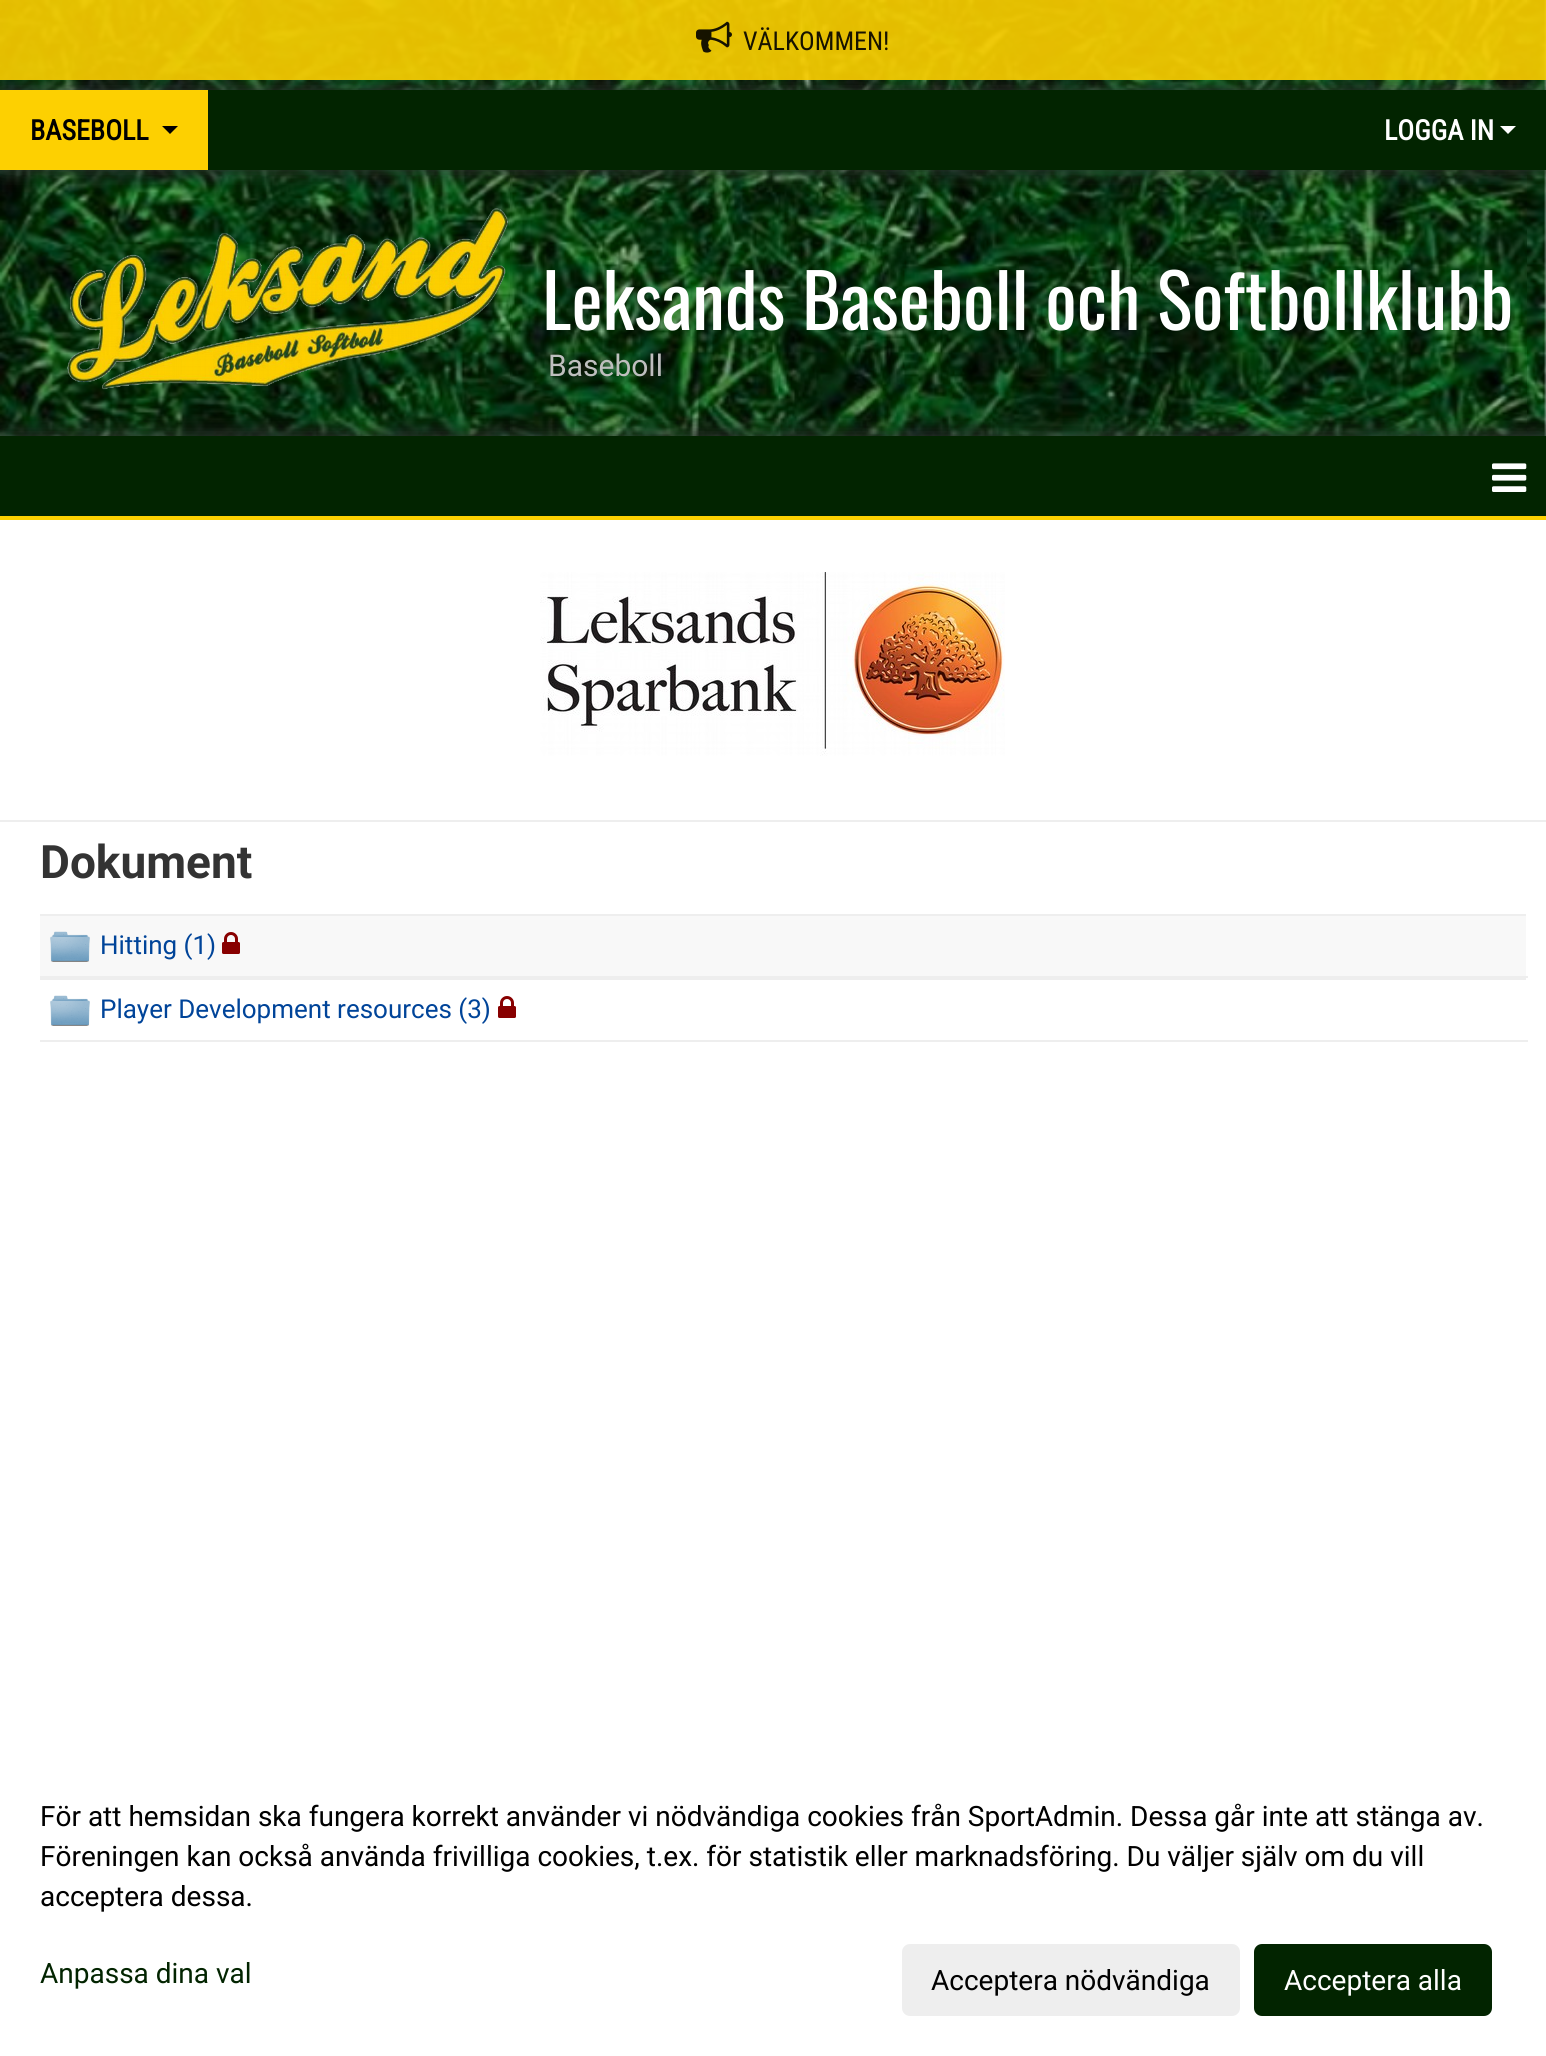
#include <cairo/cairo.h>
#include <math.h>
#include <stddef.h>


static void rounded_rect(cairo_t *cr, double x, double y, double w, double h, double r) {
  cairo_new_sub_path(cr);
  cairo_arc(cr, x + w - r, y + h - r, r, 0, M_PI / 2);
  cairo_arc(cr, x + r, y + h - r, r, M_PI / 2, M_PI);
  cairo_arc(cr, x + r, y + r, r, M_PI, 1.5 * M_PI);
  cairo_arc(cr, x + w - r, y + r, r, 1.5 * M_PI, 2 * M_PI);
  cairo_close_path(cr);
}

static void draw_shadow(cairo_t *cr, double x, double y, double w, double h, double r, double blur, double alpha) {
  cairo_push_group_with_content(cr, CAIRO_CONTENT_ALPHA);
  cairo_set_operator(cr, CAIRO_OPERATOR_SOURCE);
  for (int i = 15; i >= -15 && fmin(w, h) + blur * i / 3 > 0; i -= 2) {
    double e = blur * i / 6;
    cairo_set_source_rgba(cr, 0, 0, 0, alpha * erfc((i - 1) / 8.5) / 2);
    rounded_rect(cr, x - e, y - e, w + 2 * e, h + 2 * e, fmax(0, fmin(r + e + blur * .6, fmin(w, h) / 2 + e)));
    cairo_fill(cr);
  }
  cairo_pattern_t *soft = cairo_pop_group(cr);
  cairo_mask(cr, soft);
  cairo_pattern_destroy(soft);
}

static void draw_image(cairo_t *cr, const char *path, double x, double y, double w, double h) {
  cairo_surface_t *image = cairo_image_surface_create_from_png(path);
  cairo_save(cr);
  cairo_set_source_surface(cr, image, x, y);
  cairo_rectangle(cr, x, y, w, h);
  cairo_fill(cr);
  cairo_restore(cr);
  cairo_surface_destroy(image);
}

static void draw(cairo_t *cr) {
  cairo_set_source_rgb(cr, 1, 1, 1);
  cairo_paint(cr);
  draw_image(cr, "images/1.png", 0, 0, 1546, 436);
  cairo_set_source_rgb(cr, 51 / 255.0, 51 / 255.0, 51 / 255.0);
  draw_shadow(cr, 0, 90, 1546, 80, 0, 10, 1);
  cairo_set_source_rgba(cr, 253 / 255.0, 208 / 255.0, 1 / 255.0, 0.9);
  cairo_rectangle(cr, 0, 0, 1546, 80);
  cairo_fill(cr);
  draw_image(cr, "images/2.png", 696, 21, 36, 32);
  cairo_set_source_rgb(cr, 2 / 255.0, 36 / 255.0, 0);
  cairo_rectangle(cr, 208, 90, 1338, 80);
  cairo_fill(cr);
  cairo_set_source_rgb(cr, 253 / 255.0, 208 / 255.0, 1 / 255.0);
  cairo_rectangle(cr, 0, 90, 208, 80);
  cairo_fill(cr);
  cairo_set_source_rgb(cr, 0, 0, 0);
  cairo_new_path(cr);
  cairo_move_to(cr, 162, 126);
  cairo_line_to(cr, 178, 126);
  cairo_line_to(cr, 170, 134);
  cairo_close_path(cr);
  cairo_fill(cr);
  cairo_set_source_rgb(cr, 1, 1, 1);
  cairo_new_path(cr);
  cairo_move_to(cr, 1500, 126);
  cairo_line_to(cr, 1516, 126);
  cairo_line_to(cr, 1508, 134);
  cairo_close_path(cr);
  cairo_fill(cr);
  draw_image(cr, "images/3.png", 67, 208, 442, 182);
  cairo_set_source_rgb(cr, 51 / 255.0, 51 / 255.0, 51 / 255.0);
  draw_shadow(cr, 0, 436, 1546, 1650, 0, 10, 1);
  cairo_set_source_rgb(cr, 1, 1, 1);
  cairo_rectangle(cr, 0, 520, 1546, 1536);
  cairo_fill(cr);
  cairo_set_source_rgb(cr, 2 / 255.0, 36 / 255.0, 0);
  cairo_rectangle(cr, 0, 436, 1546, 80);
  cairo_fill(cr);
  cairo_set_source_rgb(cr, 253 / 255.0, 208 / 255.0, 1 / 255.0);
  cairo_rectangle(cr, 0, 516, 1546, 4);
  cairo_fill(cr);
  draw_image(cr, "images/4.png", 1492, 463, 35, 29);
  draw_image(cr, "images/5.png", 540, 572, 465, 184);
  cairo_set_source_rgb(cr, 238 / 255.0, 238 / 255.0, 238 / 255.0);
  cairo_rectangle(cr, 0, 820, 1546, 2);
  cairo_fill(cr);
  cairo_rectangle(cr, 40, 914, 1486, 2);
  cairo_fill(cr);
  cairo_set_source_rgb(cr, 248 / 255.0, 248 / 255.0, 248 / 255.0);
  cairo_rectangle(cr, 40, 916, 1486, 60);
  cairo_fill(cr);
  draw_image(cr, "images/6.png", 50, 931, 40, 31);
  cairo_set_source_rgb(cr, 238 / 255.0, 238 / 255.0, 238 / 255.0);
  cairo_rectangle(cr, 40, 976, 1488, 2);
  cairo_fill(cr);
  draw_image(cr, "images/7.png", 222, 932, 18, 22);
  cairo_rectangle(cr, 40, 978, 1486, 2);
  cairo_fill(cr);
  draw_image(cr, "images/8.png", 50, 995, 40, 31);
  cairo_rectangle(cr, 40, 1040, 1488, 2);
  cairo_fill(cr);
  draw_image(cr, "images/9.png", 498, 996, 18, 22);
  rounded_rect(cr, 902, 1944, 338, 72, 8);
  cairo_fill(cr);
  cairo_set_source_rgb(cr, 2 / 255.0, 36 / 255.0, 0);
  rounded_rect(cr, 1254, 1944, 238, 72, 8);
  cairo_fill(cr);
  cairo_select_font_face(cr, "Roboto Condensed", CAIRO_FONT_SLANT_NORMAL, CAIRO_FONT_WEIGHT_NORMAL);
  cairo_set_font_size(cr, 26);
  cairo_set_source_rgb(cr, 23 / 255.0, 19 / 255.0, 0);
  cairo_move_to(cr, 743, 50);
  cairo_show_text(cr, "VÄLKOMMEN!");
  cairo_select_font_face(cr, "Roboto Condensed", CAIRO_FONT_SLANT_NORMAL, CAIRO_FONT_WEIGHT_BOLD);
  cairo_set_font_size(cr, 28);
  cairo_set_source_rgb(cr, 0, 0, 0);
  cairo_move_to(cr, 30, 140);
  cairo_show_text(cr, "BASEBOLL");
  cairo_set_source_rgb(cr, 1, 1, 1);
  cairo_move_to(cr, 1384, 140);
  cairo_show_text(cr, "LOGGA IN");
  cairo_select_font_face(cr, "Oswald", CAIRO_FONT_SLANT_NORMAL, CAIRO_FONT_WEIGHT_NORMAL);
  cairo_set_font_size(cr, 74);
  cairo_move_to(cr, 542, 330);
  cairo_show_text(cr, "Leksands Baseboll och Softbollklubb");
  cairo_select_font_face(cr, "Roboto", CAIRO_FONT_SLANT_NORMAL, CAIRO_FONT_WEIGHT_NORMAL);
  cairo_set_font_size(cr, 30);
  cairo_set_source_rgb(cr, 191 / 255.0, 191 / 255.0, 191 / 255.0);
  cairo_move_to(cr, 548, 376);
  cairo_show_text(cr, "Baseboll");
  cairo_select_font_face(cr, "Roboto", CAIRO_FONT_SLANT_NORMAL, CAIRO_FONT_WEIGHT_BOLD);
  cairo_set_font_size(cr, 46);
  cairo_set_source_rgb(cr, 51 / 255.0, 51 / 255.0, 51 / 255.0);
  cairo_move_to(cr, 40, 878);
  cairo_show_text(cr, "Dokument");
  cairo_select_font_face(cr, "Roboto", CAIRO_FONT_SLANT_NORMAL, CAIRO_FONT_WEIGHT_NORMAL);
  cairo_set_font_size(cr, 26);
  cairo_set_source_rgb(cr, 0, 68 / 255.0, 153 / 255.0);
  cairo_move_to(cr, 100, 954);
  cairo_show_text(cr, "Hitting (1)");
  cairo_move_to(cr, 100, 1018);
  cairo_show_text(cr, "Player Development resources (3)");
  cairo_set_font_size(cr, 28);
  cairo_set_source_rgb(cr, 0, 0, 0);
  cairo_move_to(cr, 40, 1826);
  cairo_show_text(cr, "För att hemsidan ska fungera korrekt använder vi nödvändiga cookies från SportAdmin. Dessa går inte att stänga av.");
  cairo_move_to(cr, 40, 1866);
  cairo_show_text(cr, "Föreningen kan också använda frivilliga cookies, t.ex. för statistik eller marknadsföring. Du väljer själv om du vill");
  cairo_move_to(cr, 40, 1906);
  cairo_show_text(cr, "acceptera dessa.");
  cairo_set_source_rgb(cr, 2 / 255.0, 36 / 255.0, 0);
  cairo_move_to(cr, 40, 1983);
  cairo_show_text(cr, "Anpassa dina val");
  cairo_set_source_rgb(cr, 0, 0, 0);
  cairo_move_to(cr, 931, 1990);
  cairo_show_text(cr, "Acceptera nödvändiga");
  cairo_set_source_rgb(cr, 1, 1, 1);
  cairo_move_to(cr, 1284, 1990);
  cairo_show_text(cr, "Acceptera alla");
}

int main(void) {
  cairo_surface_t *surface = cairo_image_surface_create(CAIRO_FORMAT_RGB24, 1546, 2056);
  cairo_t *cr = cairo_create(surface);
  cairo_font_options_t *options = cairo_font_options_create();
  cairo_font_options_set_hint_metrics(options, CAIRO_HINT_METRICS_OFF);
  cairo_font_options_set_hint_style(options, CAIRO_HINT_STYLE_NONE);
  cairo_set_font_options(cr, options);
  cairo_set_miter_limit(cr, 4);
  draw(cr);
  cairo_surface_write_to_png(surface, "out.png");
  cairo_font_options_destroy(options);
  cairo_destroy(cr);
  cairo_surface_destroy(surface);
  return 0;
}
